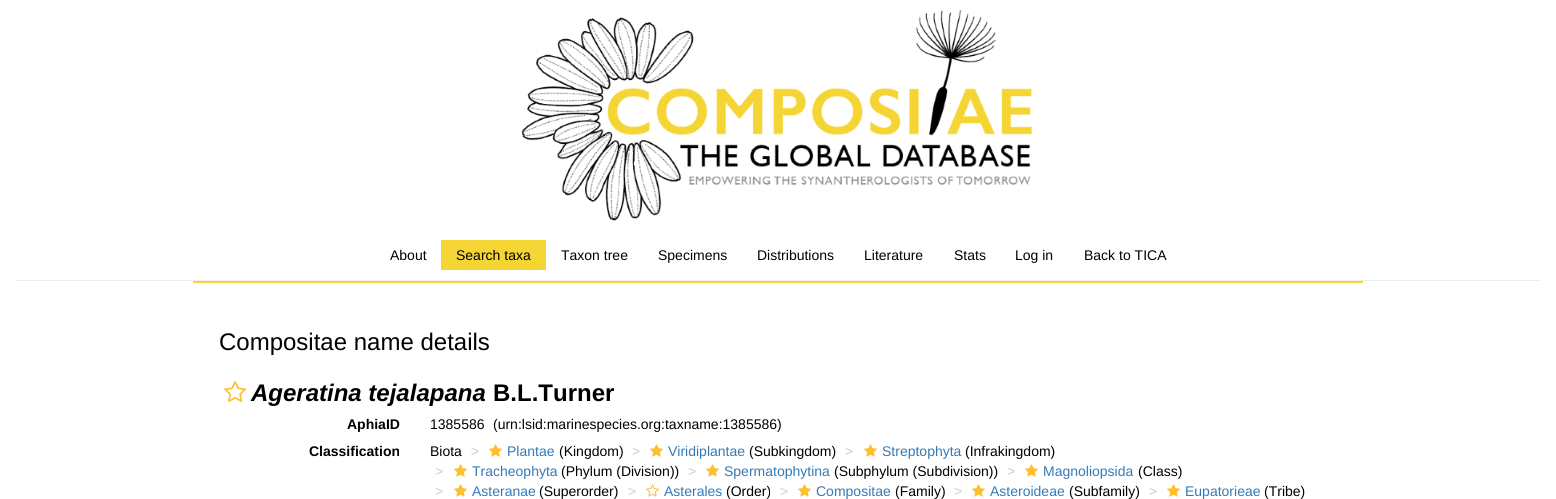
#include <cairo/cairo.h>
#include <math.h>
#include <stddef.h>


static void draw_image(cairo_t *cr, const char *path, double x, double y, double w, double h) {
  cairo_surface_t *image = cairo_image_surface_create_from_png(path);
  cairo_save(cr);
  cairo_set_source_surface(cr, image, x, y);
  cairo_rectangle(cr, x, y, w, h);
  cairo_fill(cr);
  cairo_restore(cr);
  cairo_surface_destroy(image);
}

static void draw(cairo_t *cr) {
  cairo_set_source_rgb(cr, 1, 1, 1);
  cairo_paint(cr);
  draw_image(cr, "images/1.png", 521, 10, 512, 211);
  cairo_set_source_rgb(cr, 245 / 255.0, 213 / 255.0, 51 / 255.0);
  cairo_rectangle(cr, 441, 240, 105, 30);
  cairo_fill(cr);
  cairo_set_source_rgb(cr, 238 / 255.0, 238 / 255.0, 238 / 255.0);
  cairo_rectangle(cr, 15, 280, 1526, 1);
  cairo_fill(cr);
  cairo_set_source_rgb(cr, 245 / 255.0, 213 / 255.0, 51 / 255.0);
  cairo_rectangle(cr, 193, 281, 1170, 2);
  cairo_fill(cr);
  draw_image(cr, "images/2.png", 224, 380, 23, 23);
  draw_image(cr, "images/3.png", 489, 444, 13, 13);
  draw_image(cr, "images/3.png", 650, 444, 13, 13);
  draw_image(cr, "images/3.png", 864, 444, 13, 13);
  draw_image(cr, "images/3.png", 454, 464, 13, 13);
  draw_image(cr, "images/3.png", 706, 464, 13, 13);
  draw_image(cr, "images/3.png", 1025, 464, 13, 13);
  draw_image(cr, "images/3.png", 454, 484, 13, 13);
  draw_image(cr, "images/4.png", 646, 484, 13, 13);
  draw_image(cr, "images/3.png", 798, 484, 13, 13);
  draw_image(cr, "images/3.png", 972, 484, 13, 13);
  draw_image(cr, "images/3.png", 1167, 484, 13, 13);
  cairo_select_font_face(cr, "Liberation Sans", CAIRO_FONT_SLANT_NORMAL, CAIRO_FONT_WEIGHT_NORMAL);
  cairo_set_font_size(cr, 14);
  cairo_set_source_rgb(cr, 0, 0, 0);
  cairo_move_to(cr, 390, 260);
  cairo_show_text(cr, "About");
  cairo_move_to(cr, 456, 260);
  cairo_show_text(cr, "Search taxa");
  cairo_move_to(cr, 561, 260);
  cairo_show_text(cr, "Taxon tree");
  cairo_move_to(cr, 658, 260);
  cairo_show_text(cr, "Specimens");
  cairo_move_to(cr, 757, 260);
  cairo_show_text(cr, "Distributions");
  cairo_move_to(cr, 864, 260);
  cairo_show_text(cr, "Literature");
  cairo_move_to(cr, 954, 260);
  cairo_show_text(cr, "Stats");
  cairo_move_to(cr, 1015, 260);
  cairo_show_text(cr, "Log in");
  cairo_move_to(cr, 1084, 260);
  cairo_show_text(cr, "Back to TICA");
  cairo_set_font_size(cr, 24);
  cairo_move_to(cr, 219, 350);
  cairo_show_text(cr, "Compositae name details");
  cairo_select_font_face(cr, "Liberation Sans", CAIRO_FONT_SLANT_ITALIC, CAIRO_FONT_WEIGHT_BOLD);
  cairo_move_to(cr, 251, 401);
  cairo_show_text(cr, "Ageratina tejalapana");
  cairo_select_font_face(cr, "Liberation Sans", CAIRO_FONT_SLANT_NORMAL, CAIRO_FONT_WEIGHT_BOLD);
  cairo_move_to(cr, 493, 401);
  cairo_show_text(cr, "B.L.Turner");
  cairo_set_font_size(cr, 14);
  cairo_move_to(cr, 347, 429);
  cairo_show_text(cr, "AphiaID");
  cairo_select_font_face(cr, "Liberation Sans", CAIRO_FONT_SLANT_NORMAL, CAIRO_FONT_WEIGHT_NORMAL);
  cairo_move_to(cr, 430, 429);
  cairo_show_text(cr, "1385586");
  cairo_move_to(cr, 493, 429);
  cairo_show_text(cr, "(urn:lsid:marinespecies.org:taxname:1385586)");
  cairo_select_font_face(cr, "Liberation Sans", CAIRO_FONT_SLANT_NORMAL, CAIRO_FONT_WEIGHT_BOLD);
  cairo_move_to(cr, 309, 456);
  cairo_show_text(cr, "Classification");
  cairo_select_font_face(cr, "Liberation Sans", CAIRO_FONT_SLANT_NORMAL, CAIRO_FONT_WEIGHT_NORMAL);
  cairo_move_to(cr, 430, 456);
  cairo_show_text(cr, "Biota");
  cairo_set_source_rgb(cr, 204 / 255.0, 204 / 255.0, 204 / 255.0);
  cairo_move_to(cr, 471, 456);
  cairo_show_text(cr, ">");
  cairo_set_source_rgb(cr, 51 / 255.0, 122 / 255.0, 183 / 255.0);
  cairo_move_to(cr, 507, 456);
  cairo_show_text(cr, "Plantae");
  cairo_set_source_rgb(cr, 0, 0, 0);
  cairo_move_to(cr, 559, 456);
  cairo_show_text(cr, "(Kingdom)");
  cairo_set_source_rgb(cr, 204 / 255.0, 204 / 255.0, 204 / 255.0);
  cairo_move_to(cr, 632, 456);
  cairo_show_text(cr, ">");
  cairo_set_source_rgb(cr, 51 / 255.0, 122 / 255.0, 183 / 255.0);
  cairo_move_to(cr, 668, 456);
  cairo_show_text(cr, "Viridiplantae");
  cairo_set_source_rgb(cr, 0, 0, 0);
  cairo_move_to(cr, 749, 456);
  cairo_show_text(cr, "(Subkingdom)");
  cairo_set_source_rgb(cr, 204 / 255.0, 204 / 255.0, 204 / 255.0);
  cairo_move_to(cr, 845, 456);
  cairo_show_text(cr, ">");
  cairo_set_source_rgb(cr, 51 / 255.0, 122 / 255.0, 183 / 255.0);
  cairo_move_to(cr, 882, 456);
  cairo_show_text(cr, "Streptophyta");
  cairo_set_source_rgb(cr, 0, 0, 0);
  cairo_move_to(cr, 965, 456);
  cairo_show_text(cr, "(Infrakingdom)");
  cairo_set_source_rgb(cr, 204 / 255.0, 204 / 255.0, 204 / 255.0);
  cairo_move_to(cr, 435, 476);
  cairo_show_text(cr, ">");
  cairo_set_source_rgb(cr, 51 / 255.0, 122 / 255.0, 183 / 255.0);
  cairo_move_to(cr, 472, 476);
  cairo_show_text(cr, "Tracheophyta");
  cairo_set_source_rgb(cr, 0, 0, 0);
  cairo_move_to(cr, 561, 476);
  cairo_show_text(cr, "(Phylum (Division))");
  cairo_set_source_rgb(cr, 204 / 255.0, 204 / 255.0, 204 / 255.0);
  cairo_move_to(cr, 688, 476);
  cairo_show_text(cr, ">");
  cairo_set_source_rgb(cr, 51 / 255.0, 122 / 255.0, 183 / 255.0);
  cairo_move_to(cr, 724, 476);
  cairo_show_text(cr, "Spermatophytina");
  cairo_set_source_rgb(cr, 0, 0, 0);
  cairo_move_to(cr, 834, 476);
  cairo_show_text(cr, "(Subphylum (Subdivision))");
  cairo_set_source_rgb(cr, 204 / 255.0, 204 / 255.0, 204 / 255.0);
  cairo_move_to(cr, 1007, 476);
  cairo_show_text(cr, ">");
  cairo_set_source_rgb(cr, 51 / 255.0, 122 / 255.0, 183 / 255.0);
  cairo_move_to(cr, 1043, 476);
  cairo_show_text(cr, "Magnoliopsida");
  cairo_set_source_rgb(cr, 0, 0, 0);
  cairo_move_to(cr, 1138, 476);
  cairo_show_text(cr, "(Class)");
  cairo_set_source_rgb(cr, 204 / 255.0, 204 / 255.0, 204 / 255.0);
  cairo_move_to(cr, 435, 496);
  cairo_show_text(cr, ">");
  cairo_set_source_rgb(cr, 51 / 255.0, 122 / 255.0, 183 / 255.0);
  cairo_move_to(cr, 472, 496);
  cairo_show_text(cr, "Asteranae");
  cairo_set_source_rgb(cr, 0, 0, 0);
  cairo_move_to(cr, 539, 496);
  cairo_show_text(cr, "(Superorder)");
  cairo_set_source_rgb(cr, 204 / 255.0, 204 / 255.0, 204 / 255.0);
  cairo_move_to(cr, 628, 496);
  cairo_show_text(cr, ">");
  cairo_set_source_rgb(cr, 51 / 255.0, 122 / 255.0, 183 / 255.0);
  cairo_move_to(cr, 664, 496);
  cairo_show_text(cr, "Asterales");
  cairo_set_source_rgb(cr, 0, 0, 0);
  cairo_move_to(cr, 726, 496);
  cairo_show_text(cr, "(Order)");
  cairo_set_source_rgb(cr, 204 / 255.0, 204 / 255.0, 204 / 255.0);
  cairo_move_to(cr, 780, 496);
  cairo_show_text(cr, ">");
  cairo_set_source_rgb(cr, 51 / 255.0, 122 / 255.0, 183 / 255.0);
  cairo_move_to(cr, 816, 496);
  cairo_show_text(cr, "Compositae");
  cairo_set_source_rgb(cr, 0, 0, 0);
  cairo_move_to(cr, 895, 496);
  cairo_show_text(cr, "(Family)");
  cairo_set_source_rgb(cr, 204 / 255.0, 204 / 255.0, 204 / 255.0);
  cairo_move_to(cr, 954, 496);
  cairo_show_text(cr, ">");
  cairo_set_source_rgb(cr, 51 / 255.0, 122 / 255.0, 183 / 255.0);
  cairo_move_to(cr, 990, 496);
  cairo_show_text(cr, "Asteroideae");
  cairo_set_source_rgb(cr, 0, 0, 0);
  cairo_move_to(cr, 1069, 496);
  cairo_show_text(cr, "(Subfamily)");
  cairo_set_source_rgb(cr, 204 / 255.0, 204 / 255.0, 204 / 255.0);
  cairo_move_to(cr, 1149, 496);
  cairo_show_text(cr, ">");
  cairo_set_source_rgb(cr, 51 / 255.0, 122 / 255.0, 183 / 255.0);
  cairo_move_to(cr, 1185, 496);
  cairo_show_text(cr, "Eupatorieae");
  cairo_set_source_rgb(cr, 0, 0, 0);
  cairo_move_to(cr, 1264, 496);
  cairo_show_text(cr, "(Tribe)");
}

int main(void) {
  cairo_surface_t *surface = cairo_image_surface_create(CAIRO_FORMAT_RGB24, 1556, 499);
  cairo_t *cr = cairo_create(surface);
  cairo_font_options_t *options = cairo_font_options_create();
  cairo_font_options_set_hint_metrics(options, CAIRO_HINT_METRICS_OFF);
  cairo_font_options_set_hint_style(options, CAIRO_HINT_STYLE_NONE);
  cairo_set_font_options(cr, options);
  cairo_set_miter_limit(cr, 4);
  draw(cr);
  cairo_surface_write_to_png(surface, "out.png");
  cairo_font_options_destroy(options);
  cairo_destroy(cr);
  cairo_surface_destroy(surface);
  return 0;
}
